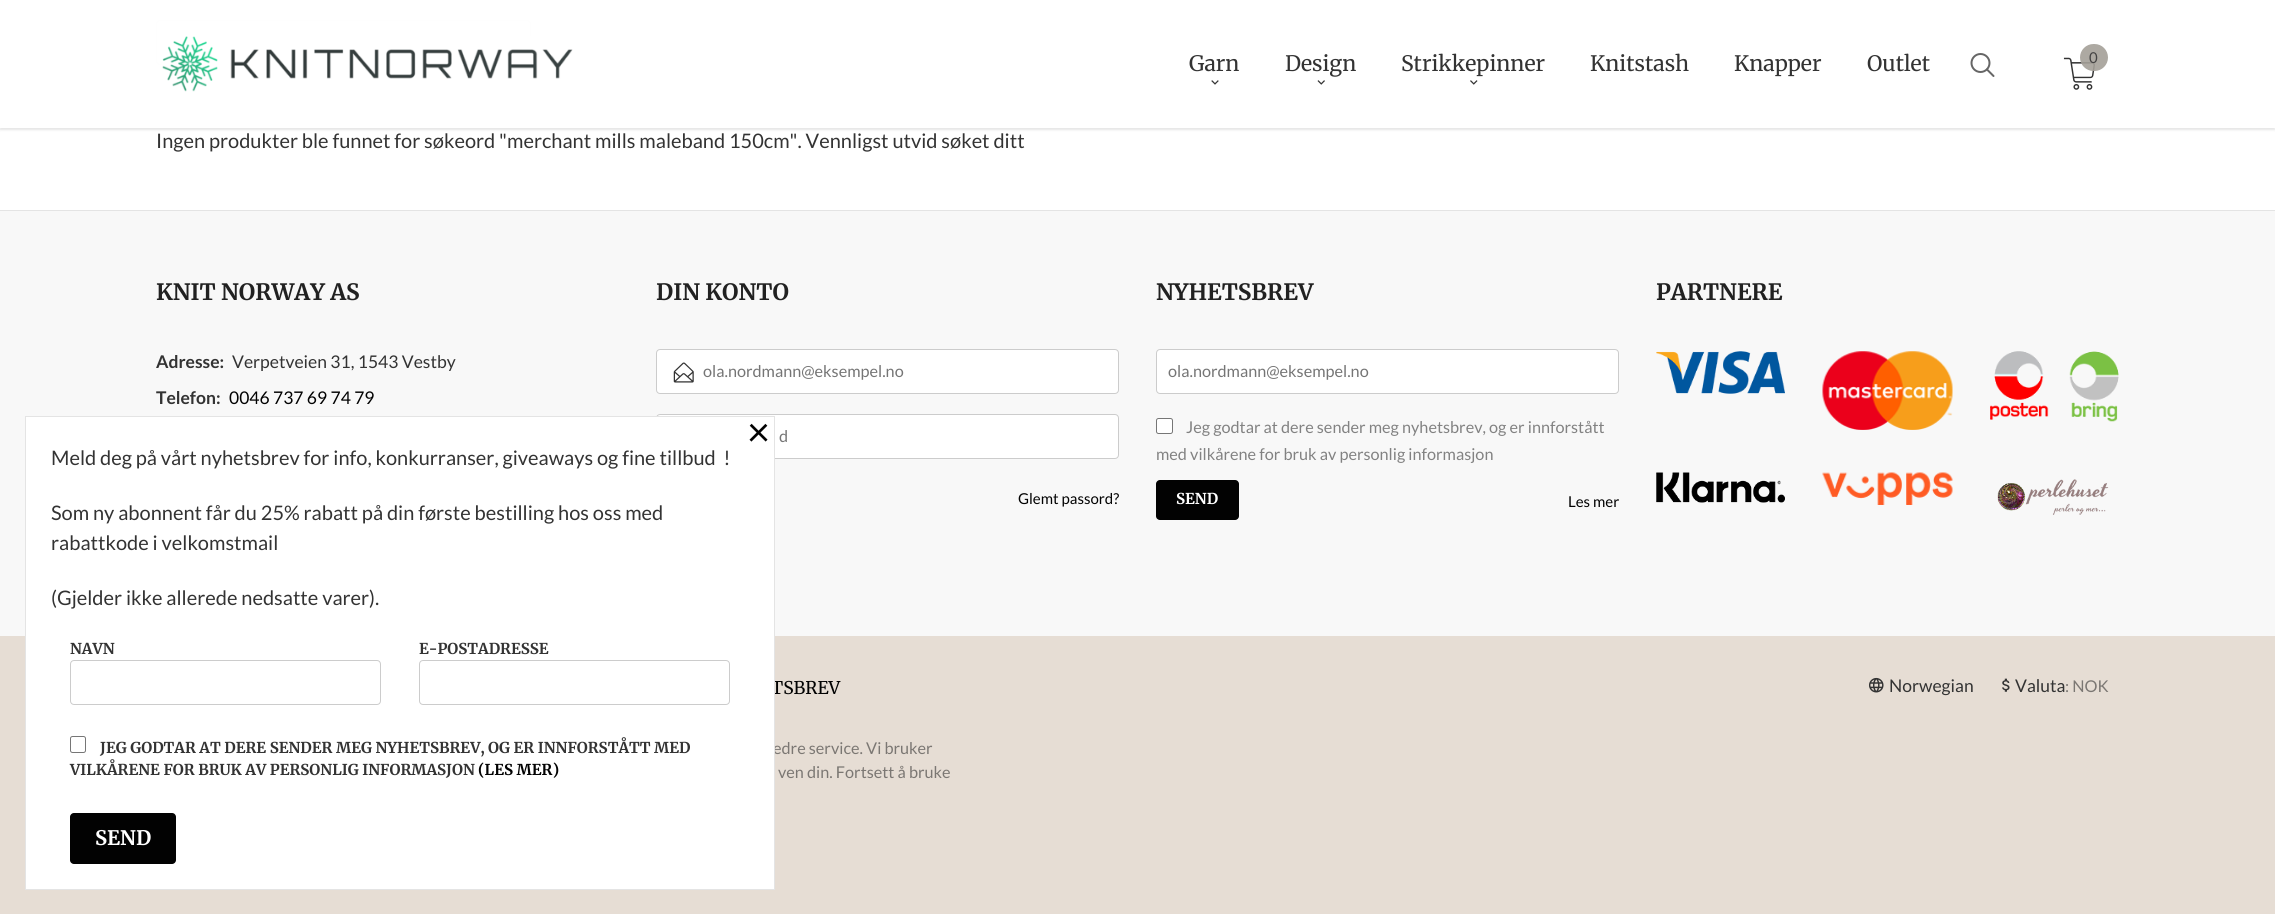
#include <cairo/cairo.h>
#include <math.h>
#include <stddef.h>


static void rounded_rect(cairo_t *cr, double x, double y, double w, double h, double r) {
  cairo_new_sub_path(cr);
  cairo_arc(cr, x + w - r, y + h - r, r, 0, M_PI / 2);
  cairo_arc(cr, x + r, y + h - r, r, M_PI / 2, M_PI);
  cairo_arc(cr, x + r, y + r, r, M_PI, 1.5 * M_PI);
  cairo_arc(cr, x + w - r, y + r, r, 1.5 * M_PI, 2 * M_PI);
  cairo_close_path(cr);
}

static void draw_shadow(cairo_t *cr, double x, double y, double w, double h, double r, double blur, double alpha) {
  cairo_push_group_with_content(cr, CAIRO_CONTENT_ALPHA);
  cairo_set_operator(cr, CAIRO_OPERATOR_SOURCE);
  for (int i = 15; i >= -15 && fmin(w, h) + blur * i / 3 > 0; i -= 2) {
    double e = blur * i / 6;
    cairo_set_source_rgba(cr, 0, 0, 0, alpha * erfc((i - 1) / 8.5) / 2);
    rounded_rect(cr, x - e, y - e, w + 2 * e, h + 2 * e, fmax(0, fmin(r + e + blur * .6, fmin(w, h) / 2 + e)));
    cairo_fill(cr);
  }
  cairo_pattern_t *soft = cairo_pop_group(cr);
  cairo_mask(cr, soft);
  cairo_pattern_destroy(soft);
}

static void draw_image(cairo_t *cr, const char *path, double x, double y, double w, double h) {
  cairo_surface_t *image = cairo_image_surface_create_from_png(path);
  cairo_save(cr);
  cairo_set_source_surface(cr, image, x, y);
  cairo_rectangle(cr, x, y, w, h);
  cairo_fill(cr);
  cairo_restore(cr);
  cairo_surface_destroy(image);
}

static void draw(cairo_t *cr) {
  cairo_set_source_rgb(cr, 248 / 255.0, 248 / 255.0, 248 / 255.0);
  cairo_paint(cr);
  cairo_set_source_rgb(cr, 1, 1, 1);
  cairo_rectangle(cr, 0, 0, 2275, 210);
  cairo_fill(cr);
  rounded_rect(cr, 156.5, 20.5, 374, 44, 3.5);
  cairo_set_source_rgb(cr, 204 / 255.0, 204 / 255.0, 204 / 255.0);
  cairo_set_line_width(cr, 1);
  cairo_stroke(cr);
  cairo_save(cr);
  cairo_set_fill_rule(cr, CAIRO_FILL_RULE_EVEN_ODD);
  cairo_new_path(cr);
  cairo_move_to(cr, 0, 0);
  cairo_line_to(cr, 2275, 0);
  cairo_line_to(cr, 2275, 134);
  cairo_line_to(cr, 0, 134);
  cairo_close_path(cr);
  cairo_move_to(cr, 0, 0);
  cairo_line_to(cr, 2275, 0);
  cairo_line_to(cr, 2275, 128);
  cairo_line_to(cr, 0, 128);
  cairo_close_path(cr);
  cairo_clip(cr);
  cairo_set_source_rgb(cr, 0, 0, 0);
  draw_shadow(cr, 0, 3, 2275, 127, 0, 1, 0.1);
  cairo_restore(cr);
  cairo_set_source_rgba(cr, 1, 1, 1, 0.97);
  cairo_rectangle(cr, 0, 20, 2275, 108);
  cairo_fill(cr);
  draw_image(cr, "images/1.png", 162, 36, 411, 56);
  draw_image(cr, "images/2.png", 1211, 80, 8, 5);
  draw_image(cr, "images/3.png", 1317, 80, 8, 5);
  draw_image(cr, "images/4.png", 1470, 80, 8, 5);
  cairo_arc(cr, 1980.5, 63, 9, 0, 2 * M_PI);
  cairo_set_source_rgb(cr, 102 / 255.0, 102 / 255.0, 102 / 255.0);
  cairo_set_line_width(cr, 2);
  cairo_stroke(cr);
  cairo_new_path(cr);
  cairo_move_to(cr, 1993.5, 76);
  cairo_line_to(cr, 1987, 69.5);
  cairo_set_line_cap(cr, CAIRO_LINE_CAP_ROUND);
  cairo_stroke(cr);
  draw_image(cr, "images/5.png", 2063, 57, 32, 33);
  cairo_set_source_rgba(cr, 164 / 255.0, 160 / 255.0, 152 / 255.0, 0.9);
  rounded_rect(cr, 2080, 44, 28, 27, 13.5);
  cairo_fill(cr);
  cairo_set_source_rgb(cr, 228 / 255.0, 228 / 255.0, 228 / 255.0);
  cairo_rectangle(cr, 0, 210, 2275, 1);
  cairo_fill(cr);
  cairo_set_source_rgb(cr, 1, 1, 1);
  rounded_rect(cr, 656.5, 349.5, 462, 44, 3.5);
  cairo_fill_preserve(cr);
  cairo_set_source_rgb(cr, 204 / 255.0, 204 / 255.0, 204 / 255.0);
  cairo_set_line_width(cr, 1);
  cairo_set_line_cap(cr, CAIRO_LINE_CAP_BUTT);
  cairo_stroke(cr);
  draw_image(cr, "images/6.png", 673, 362, 21, 21);
  cairo_set_source_rgb(cr, 1, 1, 1);
  rounded_rect(cr, 656.5, 414.5, 462, 44, 3.5);
  cairo_fill_preserve(cr);
  cairo_set_source_rgb(cr, 204 / 255.0, 204 / 255.0, 204 / 255.0);
  cairo_stroke(cr);
  cairo_set_source_rgb(cr, 1, 1, 1);
  rounded_rect(cr, 1156.5, 349.5, 462, 44, 3.5);
  cairo_fill_preserve(cr);
  cairo_set_source_rgb(cr, 204 / 255.0, 204 / 255.0, 204 / 255.0);
  cairo_stroke(cr);
  cairo_set_source_rgb(cr, 1, 1, 1);
  rounded_rect(cr, 1156.5, 418.5, 16, 15, 2);
  cairo_fill_preserve(cr);
  cairo_set_source_rgb(cr, 118 / 255.0, 118 / 255.0, 118 / 255.0);
  cairo_stroke(cr);
  cairo_set_source_rgb(cr, 2 / 255.0, 2 / 255.0, 2 / 255.0);
  rounded_rect(cr, 1156, 480, 83, 40, 4);
  cairo_fill(cr);
  draw_image(cr, "images/7.png", 1656, 351, 129, 43);
  draw_image(cr, "images/8.png", 1822, 351, 131, 79);
  draw_image(cr, "images/9.png", 1990, 351, 129, 71);
  draw_image(cr, "images/10.png", 1656, 472, 129, 31);
  draw_image(cr, "images/11.png", 1822, 472, 131, 33);
  draw_image(cr, "images/12.png", 1997, 479, 112, 36);
  cairo_set_source_rgb(cr, 230 / 255.0, 221 / 255.0, 212 / 255.0);
  cairo_rectangle(cr, 0, 636, 2275, 278);
  cairo_fill(cr);
  draw_image(cr, "images/13.png", 1869, 677, 15, 16);
  draw_image(cr, "images/14.png", 2002, 678, 8, 14);
  cairo_select_font_face(cr, "Merriweather", CAIRO_FONT_SLANT_NORMAL, CAIRO_FONT_WEIGHT_NORMAL);
  cairo_set_font_size(cr, 21.25);
  cairo_set_source_rgb(cr, 51 / 255.0, 51 / 255.0, 51 / 255.0);
  cairo_move_to(cr, 1189, 71);
  cairo_show_text(cr, "Garn");
  cairo_move_to(cr, 1285, 71);
  cairo_show_text(cr, "Design");
  cairo_move_to(cr, 1401, 71);
  cairo_show_text(cr, "Strikkepinner");
  cairo_move_to(cr, 1590, 71);
  cairo_show_text(cr, "Knitstash");
  cairo_move_to(cr, 1734, 71);
  cairo_show_text(cr, "Knapper");
  cairo_move_to(cr, 1867, 71);
  cairo_show_text(cr, "Outlet");
  cairo_select_font_face(cr, "Lato", CAIRO_FONT_SLANT_NORMAL, CAIRO_FONT_WEIGHT_NORMAL);
  cairo_set_font_size(cr, 15);
  cairo_set_source_rgb(cr, 68 / 255.0, 67 / 255.0, 67 / 255.0);
  cairo_move_to(cr, 2089, 63);
  cairo_show_text(cr, "0");
  cairo_set_font_size(cr, 20);
  cairo_set_source_rgb(cr, 51 / 255.0, 51 / 255.0, 51 / 255.0);
  cairo_move_to(cr, 156, 148);
  cairo_show_text(cr, "Ingen produkter ble funnet for søkeord \"merchant mills maleband 150cm\". Vennligst utvid søket ditt");
  cairo_select_font_face(cr, "Merriweather", CAIRO_FONT_SLANT_NORMAL, CAIRO_FONT_WEIGHT_BOLD);
  cairo_set_font_size(cr, 22.5);
  cairo_set_source_rgb(cr, 33 / 255.0, 33 / 255.0, 33 / 255.0);
  cairo_move_to(cr, 156, 300);
  cairo_show_text(cr, "KNIT NORWAY AS");
  cairo_select_font_face(cr, "Lato", CAIRO_FONT_SLANT_NORMAL, CAIRO_FONT_WEIGHT_BOLD);
  cairo_set_font_size(cr, 17.5);
  cairo_set_source_rgb(cr, 51 / 255.0, 51 / 255.0, 51 / 255.0);
  cairo_move_to(cr, 156, 368);
  cairo_show_text(cr, "Adresse:");
  cairo_select_font_face(cr, "Lato", CAIRO_FONT_SLANT_NORMAL, CAIRO_FONT_WEIGHT_NORMAL);
  cairo_move_to(cr, 232, 368);
  cairo_show_text(cr, "Verpetveien 31, 1543 Vestby");
  cairo_select_font_face(cr, "Lato", CAIRO_FONT_SLANT_NORMAL, CAIRO_FONT_WEIGHT_BOLD);
  cairo_move_to(cr, 156, 404);
  cairo_show_text(cr, "Telefon:");
  cairo_select_font_face(cr, "Lato", CAIRO_FONT_SLANT_NORMAL, CAIRO_FONT_WEIGHT_NORMAL);
  cairo_set_source_rgb(cr, 2 / 255.0, 2 / 255.0, 2 / 255.0);
  cairo_move_to(cr, 229, 404);
  cairo_show_text(cr, "0046 737 69 74 79");
  cairo_select_font_face(cr, "Merriweather", CAIRO_FONT_SLANT_NORMAL, CAIRO_FONT_WEIGHT_BOLD);
  cairo_set_font_size(cr, 22.5);
  cairo_set_source_rgb(cr, 33 / 255.0, 33 / 255.0, 33 / 255.0);
  cairo_move_to(cr, 656, 300);
  cairo_show_text(cr, "DIN KONTO");
  cairo_select_font_face(cr, "Lato", CAIRO_FONT_SLANT_NORMAL, CAIRO_FONT_WEIGHT_NORMAL);
  cairo_set_font_size(cr, 16.25);
  cairo_set_source_rgb(cr, 117 / 255.0, 117 / 255.0, 117 / 255.0);
  cairo_move_to(cr, 703, 377);
  cairo_show_text(cr, "ola.nordmann@eksempel.no");
  cairo_move_to(cr, 779, 442);
  cairo_show_text(cr, "d");
  cairo_set_font_size(cr, 15);
  cairo_set_source_rgb(cr, 2 / 255.0, 2 / 255.0, 2 / 255.0);
  cairo_move_to(cr, 1018, 504);
  cairo_show_text(cr, "Glemt passord?");
  cairo_select_font_face(cr, "Merriweather", CAIRO_FONT_SLANT_NORMAL, CAIRO_FONT_WEIGHT_BOLD);
  cairo_set_font_size(cr, 22.5);
  cairo_set_source_rgb(cr, 33 / 255.0, 33 / 255.0, 33 / 255.0);
  cairo_move_to(cr, 1156, 300);
  cairo_show_text(cr, "NYHETSBREV");
  cairo_select_font_face(cr, "Lato", CAIRO_FONT_SLANT_NORMAL, CAIRO_FONT_WEIGHT_NORMAL);
  cairo_set_font_size(cr, 16.25);
  cairo_set_source_rgb(cr, 117 / 255.0, 117 / 255.0, 117 / 255.0);
  cairo_move_to(cr, 1168, 377);
  cairo_show_text(cr, "ola.nordmann@eksempel.no");
  cairo_set_source_rgb(cr, 130 / 255.0, 130 / 255.0, 130 / 255.0);
  cairo_move_to(cr, 1186, 433);
  cairo_show_text(cr, "Jeg godtar at dere sender meg nyhetsbrev, og er innforstått");
  cairo_move_to(cr, 1156, 460);
  cairo_show_text(cr, "med vilkårene for bruk av personlig informasjon");
  cairo_select_font_face(cr, "Merriweather", CAIRO_FONT_SLANT_NORMAL, CAIRO_FONT_WEIGHT_BOLD);
  cairo_set_font_size(cr, 15);
  cairo_set_source_rgb(cr, 1, 1, 1);
  cairo_move_to(cr, 1176, 504);
  cairo_show_text(cr, "SEND");
  cairo_select_font_face(cr, "Lato", CAIRO_FONT_SLANT_NORMAL, CAIRO_FONT_WEIGHT_NORMAL);
  cairo_set_source_rgb(cr, 2 / 255.0, 2 / 255.0, 2 / 255.0);
  cairo_move_to(cr, 1568, 507);
  cairo_show_text(cr, "Les mer");
  cairo_select_font_face(cr, "Merriweather", CAIRO_FONT_SLANT_NORMAL, CAIRO_FONT_WEIGHT_BOLD);
  cairo_set_font_size(cr, 22.5);
  cairo_set_source_rgb(cr, 33 / 255.0, 33 / 255.0, 33 / 255.0);
  cairo_move_to(cr, 1656, 300);
  cairo_show_text(cr, "PARTNERE");
  cairo_select_font_face(cr, "Merriweather", CAIRO_FONT_SLANT_NORMAL, CAIRO_FONT_WEIGHT_NORMAL);
  cairo_set_font_size(cr, 17.5);
  cairo_set_source_rgb(cr, 2 / 255.0, 2 / 255.0, 2 / 255.0);
  cairo_move_to(cr, 771, 694);
  cairo_show_text(cr, "TSBREV");
  cairo_select_font_face(cr, "Lato", CAIRO_FONT_SLANT_NORMAL, CAIRO_FONT_WEIGHT_NORMAL);
  cairo_set_source_rgb(cr, 51 / 255.0, 51 / 255.0, 51 / 255.0);
  cairo_move_to(cr, 1889, 692);
  cairo_show_text(cr, "Norwegian");
  cairo_move_to(cr, 2015, 692);
  cairo_show_text(cr, "Valuta");
  cairo_set_font_size(cr, 16.25);
  cairo_set_source_rgb(cr, 123 / 255.0, 119 / 255.0, 115 / 255.0);
  cairo_move_to(cr, 2065, 692);
  cairo_show_text(cr, ": NOK");
  cairo_move_to(cr, 773, 754);
  cairo_show_text(cr, "edre service. Vi bruker");
  cairo_move_to(cr, 778, 778);
  cairo_show_text(cr, "ven din. Fortsett å bruke");
  cairo_set_source_rgb(cr, 1, 1, 1);
  cairo_rectangle(cr, 25.5, 416.5, 749, 473);
  cairo_fill_preserve(cr);
  cairo_set_source_rgb(cr, 228 / 255.0, 228 / 255.0, 228 / 255.0);
  cairo_stroke(cr);
  cairo_set_font_size(cr, 40);
  cairo_set_source_rgb(cr, 2 / 255.0, 2 / 255.0, 2 / 255.0);
  cairo_move_to(cr, 747, 446);
  cairo_show_text(cr, "×");
  cairo_set_font_size(cr, 20);
  cairo_set_source_rgb(cr, 51 / 255.0, 51 / 255.0, 51 / 255.0);
  cairo_move_to(cr, 51, 465);
  cairo_show_text(cr, "Meld deg på vårt nyhetsbrev for info, konkurranser, giveaways og fine tillbud  !");
  cairo_move_to(cr, 51, 520);
  cairo_show_text(cr, "Som ny abonnent får du 25% rabatt på din første bestilling hos oss med");
  cairo_move_to(cr, 51, 550);
  cairo_show_text(cr, "rabattkode i velkomstmail");
  cairo_move_to(cr, 51, 605);
  cairo_show_text(cr, "(Gjelder ikke allerede nedsatte varer).");
  cairo_select_font_face(cr, "Merriweather", CAIRO_FONT_SLANT_NORMAL, CAIRO_FONT_WEIGHT_BOLD);
  cairo_set_font_size(cr, 15);
  cairo_move_to(cr, 70, 654);
  cairo_show_text(cr, "NAVN");
  rounded_rect(cr, 70.5, 660.5, 310, 44, 3.5);
  cairo_set_source_rgb(cr, 204 / 255.0, 204 / 255.0, 204 / 255.0);
  cairo_stroke(cr);
  cairo_set_source_rgb(cr, 51 / 255.0, 51 / 255.0, 51 / 255.0);
  cairo_move_to(cr, 419, 654);
  cairo_show_text(cr, "E-POSTADRESSE");
  rounded_rect(cr, 419.5, 660.5, 310, 44, 3.5);
  cairo_set_source_rgb(cr, 204 / 255.0, 204 / 255.0, 204 / 255.0);
  cairo_stroke(cr);
  rounded_rect(cr, 70.5, 736.5, 15, 16, 2);
  cairo_set_source_rgb(cr, 118 / 255.0, 118 / 255.0, 118 / 255.0);
  cairo_stroke(cr);
  cairo_set_source_rgb(cr, 51 / 255.0, 51 / 255.0, 51 / 255.0);
  cairo_move_to(cr, 100, 753);
  cairo_show_text(cr, "JEG GODTAR AT DERE SENDER MEG NYHETSBREV, OG ER INNFORSTÅTT MED");
  cairo_move_to(cr, 70, 775);
  cairo_show_text(cr, "VILKÅRENE FOR BRUK AV PERSONLIG INFORMASJON");
  cairo_set_source_rgb(cr, 2 / 255.0, 2 / 255.0, 2 / 255.0);
  cairo_move_to(cr, 478, 775);
  cairo_show_text(cr, "(LES MER)");
  rounded_rect(cr, 70, 813, 106, 51, 4);
  cairo_fill(cr);
  cairo_set_font_size(cr, 20);
  cairo_set_source_rgb(cr, 1, 1, 1);
  cairo_move_to(cr, 95, 845);
  cairo_show_text(cr, "SEND");
}

int main(void) {
  cairo_surface_t *surface = cairo_image_surface_create(CAIRO_FORMAT_RGB24, 2275, 914);
  cairo_t *cr = cairo_create(surface);
  cairo_font_options_t *options = cairo_font_options_create();
  cairo_font_options_set_hint_metrics(options, CAIRO_HINT_METRICS_OFF);
  cairo_font_options_set_hint_style(options, CAIRO_HINT_STYLE_NONE);
  cairo_set_font_options(cr, options);
  cairo_set_miter_limit(cr, 4);
  draw(cr);
  cairo_surface_write_to_png(surface, "out.png");
  cairo_font_options_destroy(options);
  cairo_destroy(cr);
  cairo_surface_destroy(surface);
  return 0;
}
